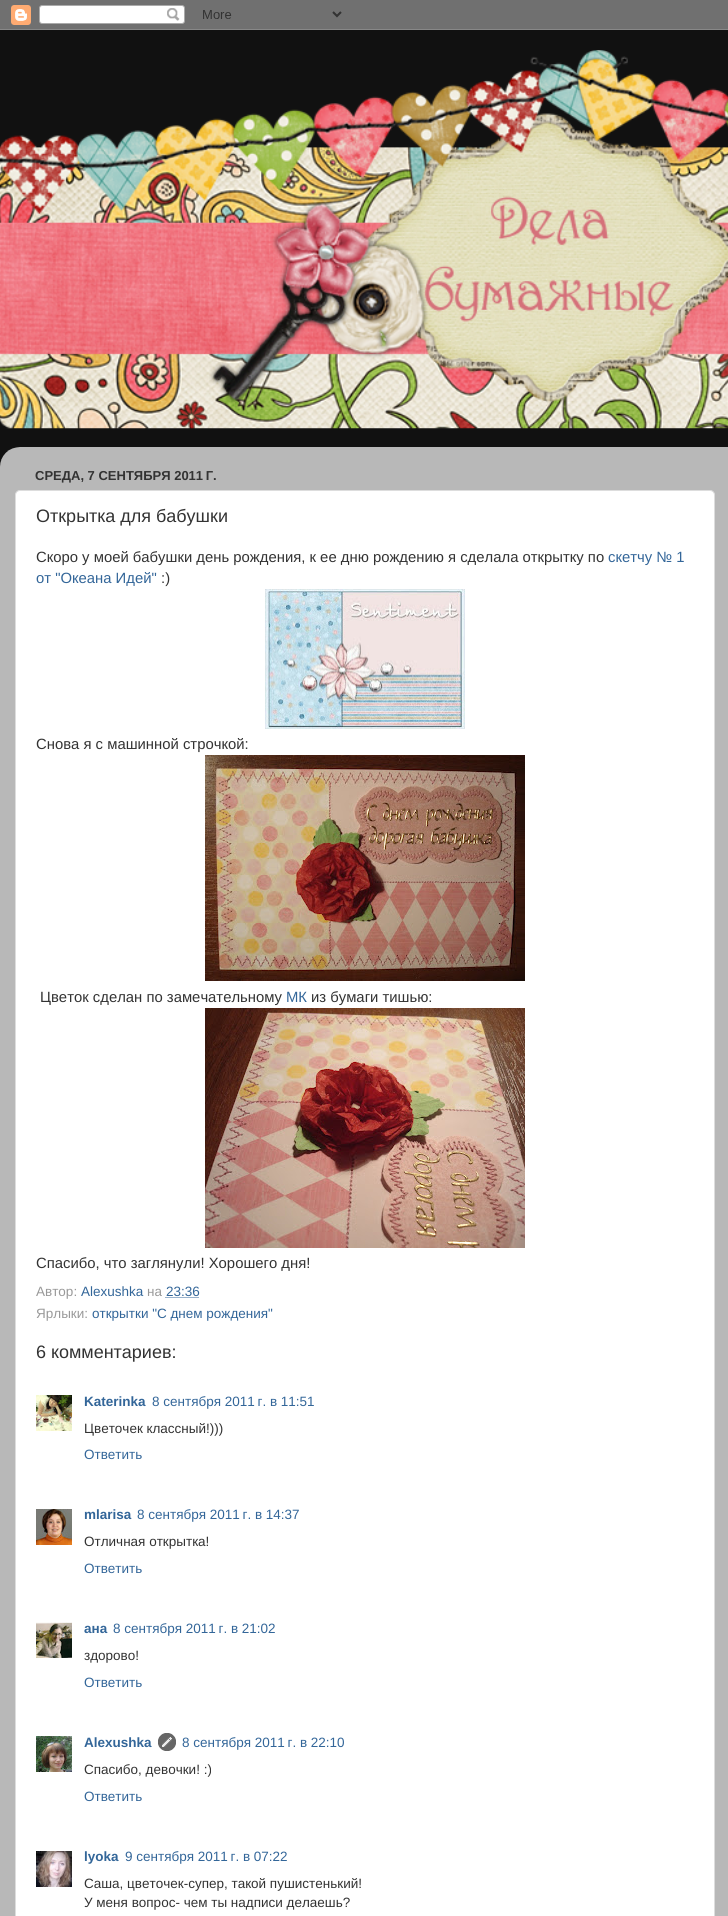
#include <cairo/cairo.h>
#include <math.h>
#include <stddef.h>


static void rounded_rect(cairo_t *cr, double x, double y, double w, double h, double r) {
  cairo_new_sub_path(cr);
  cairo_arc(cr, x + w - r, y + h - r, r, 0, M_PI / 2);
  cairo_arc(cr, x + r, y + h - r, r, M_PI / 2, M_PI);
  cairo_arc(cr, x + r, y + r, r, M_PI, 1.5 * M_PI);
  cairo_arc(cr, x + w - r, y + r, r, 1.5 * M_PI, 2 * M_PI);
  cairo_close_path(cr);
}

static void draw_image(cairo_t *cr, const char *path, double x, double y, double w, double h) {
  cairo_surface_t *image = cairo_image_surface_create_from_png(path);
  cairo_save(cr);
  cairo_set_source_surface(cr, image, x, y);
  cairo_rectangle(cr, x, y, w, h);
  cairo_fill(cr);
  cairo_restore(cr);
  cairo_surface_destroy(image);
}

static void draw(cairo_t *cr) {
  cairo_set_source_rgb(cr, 17 / 255.0, 17 / 255.0, 17 / 255.0);
  cairo_paint(cr);
  draw_image(cr, "images/1.png", 0, 0, 728, 30);
  draw_image(cr, "images/2.png", 0, 50, 728, 379);
  draw_image(cr, "images/3.png", 0, 447, 728, 1469);
  cairo_set_source_rgb(cr, 1, 1, 1);
  rounded_rect(cr, 15.5, 490.5, 699, 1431, 4.5);
  cairo_fill_preserve(cr);
  cairo_set_source_rgb(cr, 221 / 255.0, 221 / 255.0, 221 / 255.0);
  cairo_set_line_width(cr, 1);
  cairo_stroke(cr);
  draw_image(cr, "images/4.png", 265, 589, 200, 140);
  draw_image(cr, "images/5.png", 205, 755, 320, 226);
  draw_image(cr, "images/6.png", 205, 1008, 320, 240);
  cairo_new_path(cr);
  cairo_move_to(cr, 165.5, 1297.5);
  cairo_line_to(cr, 199.5, 1297.5);
  cairo_set_source_rgb(cr, 51 / 255.0, 102 / 255.0, 153 / 255.0);
  cairo_set_dash(cr, (double[]){1, 1}, 2, 0);
  cairo_stroke(cr);
  draw_image(cr, "images/7.png", 36, 1395, 36, 36);
  draw_image(cr, "images/8.png", 36, 1509, 36, 36);
  draw_image(cr, "images/9.png", 36, 1622, 36, 36);
  draw_image(cr, "images/10.png", 36, 1736, 36, 36);
  draw_image(cr, "images/11.png", 158, 1733, 18, 18);
  draw_image(cr, "images/12.png", 36, 1851, 36, 36);
  cairo_select_font_face(cr, "Liberation Sans", CAIRO_FONT_SLANT_NORMAL, CAIRO_FONT_WEIGHT_BOLD);
  cairo_set_font_size(cr, 13);
  cairo_set_source_rgb(cr, 51 / 255.0, 51 / 255.0, 51 / 255.0);
  cairo_move_to(cr, 35, 480);
  cairo_show_text(cr, "СРЕДА, 7 СЕНТЯБРЯ 2011 Г.");
  cairo_select_font_face(cr, "Liberation Sans", CAIRO_FONT_SLANT_NORMAL, CAIRO_FONT_WEIGHT_NORMAL);
  cairo_set_font_size(cr, 18);
  cairo_move_to(cr, 36, 522);
  cairo_show_text(cr, "Открытка для бабушки");
  cairo_set_font_size(cr, 14.85);
  cairo_move_to(cr, 36, 562);
  cairo_show_text(cr, "Скоро у моей бабушки день рождения, к ее дню рождению я сделала открытку по");
  cairo_set_source_rgb(cr, 51 / 255.0, 102 / 255.0, 153 / 255.0);
  cairo_move_to(cr, 608, 562);
  cairo_show_text(cr, "скетчу № 1");
  cairo_move_to(cr, 36, 583);
  cairo_show_text(cr, "от \"Океана Идей\"");
  cairo_set_source_rgb(cr, 51 / 255.0, 51 / 255.0, 51 / 255.0);
  cairo_move_to(cr, 161, 583);
  cairo_show_text(cr, ":)");
  cairo_move_to(cr, 36, 749);
  cairo_show_text(cr, "Снова я с машинной строчкой:");
  cairo_move_to(cr, 40, 1002);
  cairo_show_text(cr, "Цветок сделан по замечательному");
  cairo_set_source_rgb(cr, 51 / 255.0, 102 / 255.0, 153 / 255.0);
  cairo_move_to(cr, 286, 1002);
  cairo_show_text(cr, "МК");
  cairo_set_source_rgb(cr, 51 / 255.0, 51 / 255.0, 51 / 255.0);
  cairo_move_to(cr, 311, 1002);
  cairo_show_text(cr, "из бумаги тишью:");
  cairo_move_to(cr, 36, 1268);
  cairo_show_text(cr, "Спасибо, что заглянули! Хорошего дня!");
  cairo_set_font_size(cr, 13.5);
  cairo_set_source_rgb(cr, 153 / 255.0, 153 / 255.0, 153 / 255.0);
  cairo_move_to(cr, 36, 1296);
  cairo_show_text(cr, "Автор:");
  cairo_set_source_rgb(cr, 51 / 255.0, 102 / 255.0, 153 / 255.0);
  cairo_move_to(cr, 81, 1296);
  cairo_show_text(cr, "Alexushka");
  cairo_set_source_rgb(cr, 153 / 255.0, 153 / 255.0, 153 / 255.0);
  cairo_move_to(cr, 147, 1296);
  cairo_show_text(cr, "на");
  cairo_set_source_rgb(cr, 51 / 255.0, 102 / 255.0, 153 / 255.0);
  cairo_move_to(cr, 166, 1296);
  cairo_show_text(cr, "23:36");
  cairo_set_source_rgb(cr, 153 / 255.0, 153 / 255.0, 153 / 255.0);
  cairo_move_to(cr, 36, 1318);
  cairo_show_text(cr, "Ярлыки:");
  cairo_set_source_rgb(cr, 51 / 255.0, 102 / 255.0, 153 / 255.0);
  cairo_move_to(cr, 92, 1318);
  cairo_show_text(cr, "открытки \"С днем рождения\"");
  cairo_set_font_size(cr, 18);
  cairo_set_source_rgb(cr, 51 / 255.0, 51 / 255.0, 51 / 255.0);
  cairo_move_to(cr, 36, 1358);
  cairo_show_text(cr, "6 комментариев:");
  cairo_select_font_face(cr, "Liberation Sans", CAIRO_FONT_SLANT_NORMAL, CAIRO_FONT_WEIGHT_BOLD);
  cairo_set_font_size(cr, 13.5);
  cairo_set_source_rgb(cr, 51 / 255.0, 102 / 255.0, 153 / 255.0);
  cairo_move_to(cr, 84, 1406);
  cairo_show_text(cr, "Katerinka");
  cairo_select_font_face(cr, "Liberation Sans", CAIRO_FONT_SLANT_NORMAL, CAIRO_FONT_WEIGHT_NORMAL);
  cairo_move_to(cr, 152, 1406);
  cairo_show_text(cr, "8 сентября 2011 г. в 11:51");
  cairo_set_source_rgb(cr, 51 / 255.0, 51 / 255.0, 51 / 255.0);
  cairo_move_to(cr, 84, 1433);
  cairo_show_text(cr, "Цветочек классный!)))");
  cairo_set_source_rgb(cr, 51 / 255.0, 102 / 255.0, 153 / 255.0);
  cairo_move_to(cr, 84, 1459);
  cairo_show_text(cr, "Ответить");
  cairo_select_font_face(cr, "Liberation Sans", CAIRO_FONT_SLANT_NORMAL, CAIRO_FONT_WEIGHT_BOLD);
  cairo_move_to(cr, 84, 1519);
  cairo_show_text(cr, "mlarisa");
  cairo_select_font_face(cr, "Liberation Sans", CAIRO_FONT_SLANT_NORMAL, CAIRO_FONT_WEIGHT_NORMAL);
  cairo_move_to(cr, 137, 1519);
  cairo_show_text(cr, "8 сентября 2011 г. в 14:37");
  cairo_set_source_rgb(cr, 51 / 255.0, 51 / 255.0, 51 / 255.0);
  cairo_move_to(cr, 84, 1546);
  cairo_show_text(cr, "Отличная открытка!");
  cairo_set_source_rgb(cr, 51 / 255.0, 102 / 255.0, 153 / 255.0);
  cairo_move_to(cr, 84, 1573);
  cairo_show_text(cr, "Ответить");
  cairo_select_font_face(cr, "Liberation Sans", CAIRO_FONT_SLANT_NORMAL, CAIRO_FONT_WEIGHT_BOLD);
  cairo_move_to(cr, 84, 1633);
  cairo_show_text(cr, "ана");
  cairo_select_font_face(cr, "Liberation Sans", CAIRO_FONT_SLANT_NORMAL, CAIRO_FONT_WEIGHT_NORMAL);
  cairo_move_to(cr, 113, 1633);
  cairo_show_text(cr, "8 сентября 2011 г. в 21:02");
  cairo_set_source_rgb(cr, 51 / 255.0, 51 / 255.0, 51 / 255.0);
  cairo_move_to(cr, 84, 1660);
  cairo_show_text(cr, "здорово!");
  cairo_set_source_rgb(cr, 51 / 255.0, 102 / 255.0, 153 / 255.0);
  cairo_move_to(cr, 84, 1687);
  cairo_show_text(cr, "Ответить");
  cairo_select_font_face(cr, "Liberation Sans", CAIRO_FONT_SLANT_NORMAL, CAIRO_FONT_WEIGHT_BOLD);
  cairo_move_to(cr, 84, 1747);
  cairo_show_text(cr, "Alexushka");
  cairo_select_font_face(cr, "Liberation Sans", CAIRO_FONT_SLANT_NORMAL, CAIRO_FONT_WEIGHT_NORMAL);
  cairo_move_to(cr, 182, 1747);
  cairo_show_text(cr, "8 сентября 2011 г. в 22:10");
  cairo_set_source_rgb(cr, 51 / 255.0, 51 / 255.0, 51 / 255.0);
  cairo_move_to(cr, 84, 1774);
  cairo_show_text(cr, "Спасибо, девочки! :)");
  cairo_set_source_rgb(cr, 51 / 255.0, 102 / 255.0, 153 / 255.0);
  cairo_move_to(cr, 84, 1801);
  cairo_show_text(cr, "Ответить");
  cairo_select_font_face(cr, "Liberation Sans", CAIRO_FONT_SLANT_NORMAL, CAIRO_FONT_WEIGHT_BOLD);
  cairo_move_to(cr, 84, 1861);
  cairo_show_text(cr, "lyoka");
  cairo_select_font_face(cr, "Liberation Sans", CAIRO_FONT_SLANT_NORMAL, CAIRO_FONT_WEIGHT_NORMAL);
  cairo_move_to(cr, 125, 1861);
  cairo_show_text(cr, "9 сентября 2011 г. в 07:22");
  cairo_set_source_rgb(cr, 51 / 255.0, 51 / 255.0, 51 / 255.0);
  cairo_move_to(cr, 84, 1888);
  cairo_show_text(cr, "Саша, цветочек-супер, такой пушистенький!");
  cairo_move_to(cr, 84, 1907);
  cairo_show_text(cr, "У меня вопрос- чем ты надписи делаешь?");
}

int main(void) {
  cairo_surface_t *surface = cairo_image_surface_create(CAIRO_FORMAT_RGB24, 728, 1916);
  cairo_t *cr = cairo_create(surface);
  cairo_font_options_t *options = cairo_font_options_create();
  cairo_font_options_set_hint_metrics(options, CAIRO_HINT_METRICS_OFF);
  cairo_font_options_set_hint_style(options, CAIRO_HINT_STYLE_NONE);
  cairo_set_font_options(cr, options);
  cairo_set_miter_limit(cr, 4);
  draw(cr);
  cairo_surface_write_to_png(surface, "out.png");
  cairo_font_options_destroy(options);
  cairo_destroy(cr);
  cairo_surface_destroy(surface);
  return 0;
}
